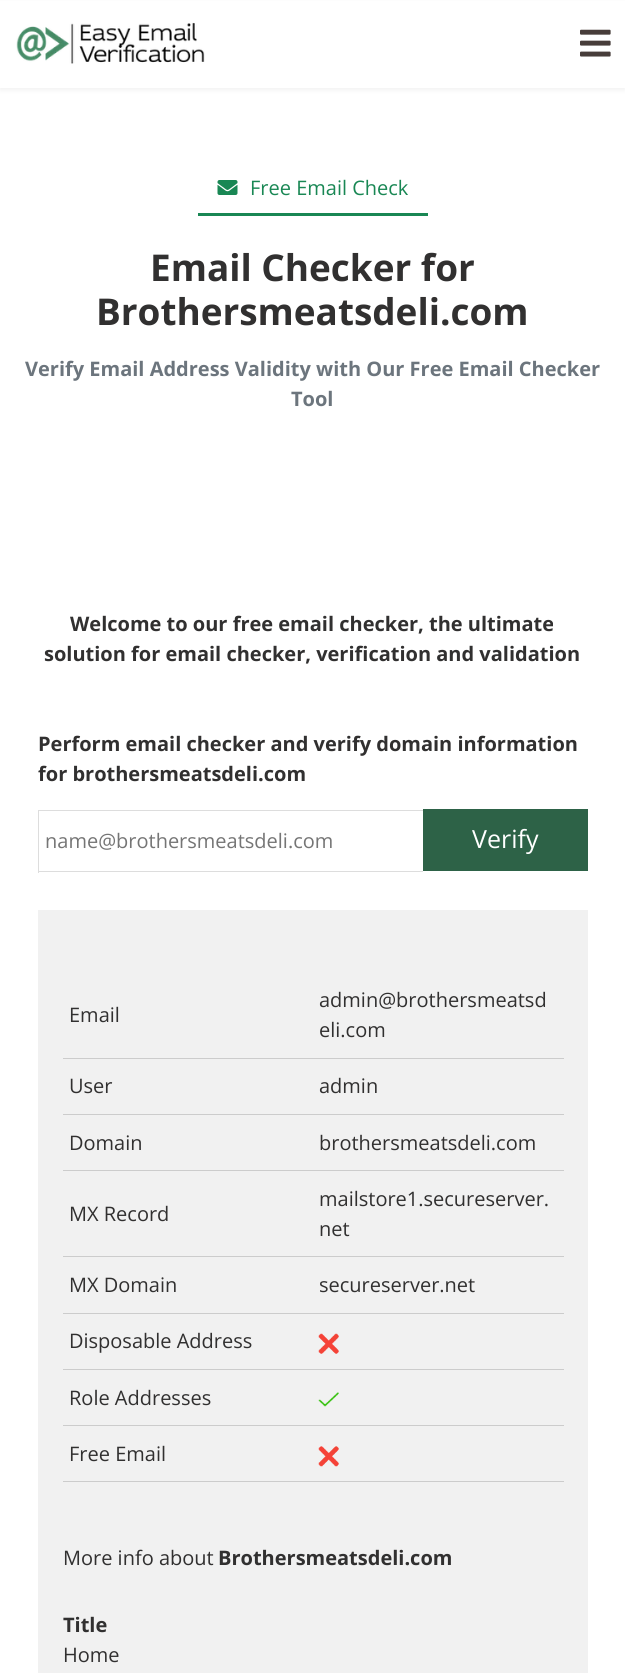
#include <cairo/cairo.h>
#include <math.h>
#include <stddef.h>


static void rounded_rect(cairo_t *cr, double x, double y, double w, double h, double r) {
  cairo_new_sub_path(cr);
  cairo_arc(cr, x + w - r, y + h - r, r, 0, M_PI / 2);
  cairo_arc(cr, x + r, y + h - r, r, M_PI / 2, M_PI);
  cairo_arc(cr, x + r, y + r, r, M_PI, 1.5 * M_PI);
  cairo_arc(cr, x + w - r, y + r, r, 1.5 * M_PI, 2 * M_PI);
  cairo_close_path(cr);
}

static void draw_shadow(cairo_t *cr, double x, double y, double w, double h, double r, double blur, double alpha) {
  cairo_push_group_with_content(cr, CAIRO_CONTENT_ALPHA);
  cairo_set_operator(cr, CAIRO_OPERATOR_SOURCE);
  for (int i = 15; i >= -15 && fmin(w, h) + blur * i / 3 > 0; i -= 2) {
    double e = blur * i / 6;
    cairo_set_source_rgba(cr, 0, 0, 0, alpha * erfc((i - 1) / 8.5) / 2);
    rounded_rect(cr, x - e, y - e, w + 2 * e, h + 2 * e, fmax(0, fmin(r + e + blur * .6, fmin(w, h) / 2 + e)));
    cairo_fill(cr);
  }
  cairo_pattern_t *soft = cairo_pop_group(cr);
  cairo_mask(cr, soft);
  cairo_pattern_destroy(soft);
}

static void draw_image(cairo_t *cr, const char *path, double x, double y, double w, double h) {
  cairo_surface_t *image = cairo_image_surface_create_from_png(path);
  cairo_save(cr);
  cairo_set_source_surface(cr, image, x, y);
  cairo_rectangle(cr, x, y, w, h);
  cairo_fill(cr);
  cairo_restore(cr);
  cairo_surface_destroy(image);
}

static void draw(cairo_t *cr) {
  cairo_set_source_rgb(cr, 1, 1, 1);
  cairo_paint(cr);
  cairo_set_source_rgb(cr, 241 / 255.0, 241 / 255.0, 241 / 255.0);
  draw_shadow(cr, 0, 3, 625, 87, 0, 2.5, 1);
  cairo_set_source_rgb(cr, 1, 1, 1);
  cairo_rectangle(cr, 0, 1, 625, 87);
  cairo_fill(cr);
  draw_image(cr, "images/1.png", 16, 22, 189, 42);
  draw_image(cr, "images/2.png", 580, 29, 31, 28);
  cairo_set_source_rgb(cr, 25 / 255.0, 135 / 255.0, 84 / 255.0);
  cairo_rectangle(cr, 198, 213, 230, 3);
  cairo_fill(cr);
  draw_image(cr, "images/3.png", 217, 180, 21, 15);
  cairo_set_source_rgb(cr, 221 / 255.0, 221 / 255.0, 221 / 255.0);
  cairo_rectangle(cr, 38, 810, 385, 1);
  cairo_fill(cr);
  cairo_rectangle(cr, 38, 871, 385, 1);
  cairo_fill(cr);
  cairo_rectangle(cr, 38, 810, 1, 63);
  cairo_fill(cr);
  cairo_set_source_rgb(cr, 45 / 255.0, 98 / 255.0, 71 / 255.0);
  cairo_rectangle(cr, 423, 809, 165, 62);
  cairo_fill(cr);
  cairo_set_source_rgb(cr, 241 / 255.0, 241 / 255.0, 241 / 255.0);
  cairo_rectangle(cr, 38, 910, 550, 763);
  cairo_fill(cr);
  cairo_set_source_rgb(cr, 204 / 255.0, 204 / 255.0, 204 / 255.0);
  cairo_rectangle(cr, 63, 1058, 501, 1);
  cairo_fill(cr);
  cairo_rectangle(cr, 63, 1114, 501, 1);
  cairo_fill(cr);
  cairo_rectangle(cr, 63, 1170, 501, 1);
  cairo_fill(cr);
  cairo_rectangle(cr, 63, 1256, 501, 1);
  cairo_fill(cr);
  cairo_rectangle(cr, 63, 1313, 501, 1);
  cairo_fill(cr);
  cairo_rectangle(cr, 63, 1369, 501, 1);
  cairo_fill(cr);
  draw_image(cr, "images/4.png", 318, 1333, 21, 21);
  cairo_rectangle(cr, 63, 1425, 501, 1);
  cairo_fill(cr);
  draw_image(cr, "images/5.png", 318, 1392, 21, 15);
  cairo_rectangle(cr, 63, 1481, 501, 1);
  cairo_fill(cr);
  draw_image(cr, "images/6.png", 318, 1446, 21, 21);
  cairo_select_font_face(cr, "Open Sans", CAIRO_FONT_SLANT_NORMAL, CAIRO_FONT_WEIGHT_NORMAL);
  cairo_set_font_size(cr, 20);
  cairo_set_source_rgb(cr, 25 / 255.0, 135 / 255.0, 84 / 255.0);
  cairo_move_to(cr, 250, 195);
  cairo_show_text(cr, "Free Email Check");
  cairo_select_font_face(cr, "Open Sans", CAIRO_FONT_SLANT_NORMAL, CAIRO_FONT_WEIGHT_BOLD);
  cairo_set_font_size(cr, 36.9);
  cairo_set_source_rgb(cr, 49 / 255.0, 48 / 255.0, 48 / 255.0);
  cairo_move_to(cr, 150, 281);
  cairo_show_text(cr, "Email Checker for");
  cairo_move_to(cr, 96, 325);
  cairo_show_text(cr, "Brothersmeatsdeli.com");
  cairo_set_font_size(cr, 20);
  cairo_set_source_rgb(cr, 108 / 255.0, 117 / 255.0, 125 / 255.0);
  cairo_move_to(cr, 25, 376);
  cairo_show_text(cr, "Verify Email Address Validity with Our Free Email Checker");
  cairo_move_to(cr, 291, 406);
  cairo_show_text(cr, "Tool");
  cairo_set_source_rgb(cr, 49 / 255.0, 48 / 255.0, 48 / 255.0);
  cairo_move_to(cr, 70, 631);
  cairo_show_text(cr, "Welcome to our free email checker, the ultimate");
  cairo_move_to(cr, 44, 661);
  cairo_show_text(cr, "solution for email checker, verification and validation");
  cairo_move_to(cr, 38, 751);
  cairo_show_text(cr, "Perform email checker and verify domain information");
  cairo_move_to(cr, 38, 781);
  cairo_show_text(cr, "for brothersmeatsdeli.com");
  cairo_select_font_face(cr, "Open Sans", CAIRO_FONT_SLANT_NORMAL, CAIRO_FONT_WEIGHT_NORMAL);
  cairo_set_source_rgb(cr, 117 / 255.0, 117 / 255.0, 117 / 255.0);
  cairo_move_to(cr, 45, 848);
  cairo_show_text(cr, "name@brothersmeatsdeli.com");
  cairo_set_font_size(cr, 25);
  cairo_set_source_rgb(cr, 1, 1, 1);
  cairo_move_to(cr, 472, 848);
  cairo_show_text(cr, "Verify");
  cairo_set_font_size(cr, 20);
  cairo_set_source_rgb(cr, 49 / 255.0, 48 / 255.0, 48 / 255.0);
  cairo_move_to(cr, 69, 1022);
  cairo_show_text(cr, "Email");
  cairo_move_to(cr, 319, 1007);
  cairo_show_text(cr, "admin@brothersmeatsd");
  cairo_move_to(cr, 319, 1037);
  cairo_show_text(cr, "eli.com");
  cairo_move_to(cr, 69, 1093);
  cairo_show_text(cr, "User");
  cairo_move_to(cr, 319, 1093);
  cairo_show_text(cr, "admin");
  cairo_move_to(cr, 69, 1150);
  cairo_show_text(cr, "Domain");
  cairo_move_to(cr, 319, 1150);
  cairo_show_text(cr, "brothersmeatsdeli.com");
  cairo_move_to(cr, 69, 1221);
  cairo_show_text(cr, "MX Record");
  cairo_move_to(cr, 319, 1206);
  cairo_show_text(cr, "mailstore1.secureserver.");
  cairo_move_to(cr, 319, 1236);
  cairo_show_text(cr, "net");
  cairo_move_to(cr, 69, 1292);
  cairo_show_text(cr, "MX Domain");
  cairo_move_to(cr, 319, 1292);
  cairo_show_text(cr, "secureserver.net");
  cairo_move_to(cr, 69, 1348);
  cairo_show_text(cr, "Disposable Address");
  cairo_move_to(cr, 69, 1405);
  cairo_show_text(cr, "Role Addresses");
  cairo_move_to(cr, 69, 1461);
  cairo_show_text(cr, "Free Email");
  cairo_move_to(cr, 63, 1565);
  cairo_show_text(cr, "More info about");
  cairo_select_font_face(cr, "Open Sans", CAIRO_FONT_SLANT_NORMAL, CAIRO_FONT_WEIGHT_BOLD);
  cairo_move_to(cr, 218, 1565);
  cairo_show_text(cr, "Brothersmeatsdeli.com");
  cairo_move_to(cr, 63, 1632);
  cairo_show_text(cr, "Title");
  cairo_select_font_face(cr, "Open Sans", CAIRO_FONT_SLANT_NORMAL, CAIRO_FONT_WEIGHT_NORMAL);
  cairo_move_to(cr, 63, 1662);
  cairo_show_text(cr, "Home");
}

int main(void) {
  cairo_surface_t *surface = cairo_image_surface_create(CAIRO_FORMAT_RGB24, 625, 1673);
  cairo_t *cr = cairo_create(surface);
  cairo_font_options_t *options = cairo_font_options_create();
  cairo_font_options_set_hint_metrics(options, CAIRO_HINT_METRICS_OFF);
  cairo_font_options_set_hint_style(options, CAIRO_HINT_STYLE_NONE);
  cairo_set_font_options(cr, options);
  cairo_set_miter_limit(cr, 4);
  draw(cr);
  cairo_surface_write_to_png(surface, "out.png");
  cairo_font_options_destroy(options);
  cairo_destroy(cr);
  cairo_surface_destroy(surface);
  return 0;
}
